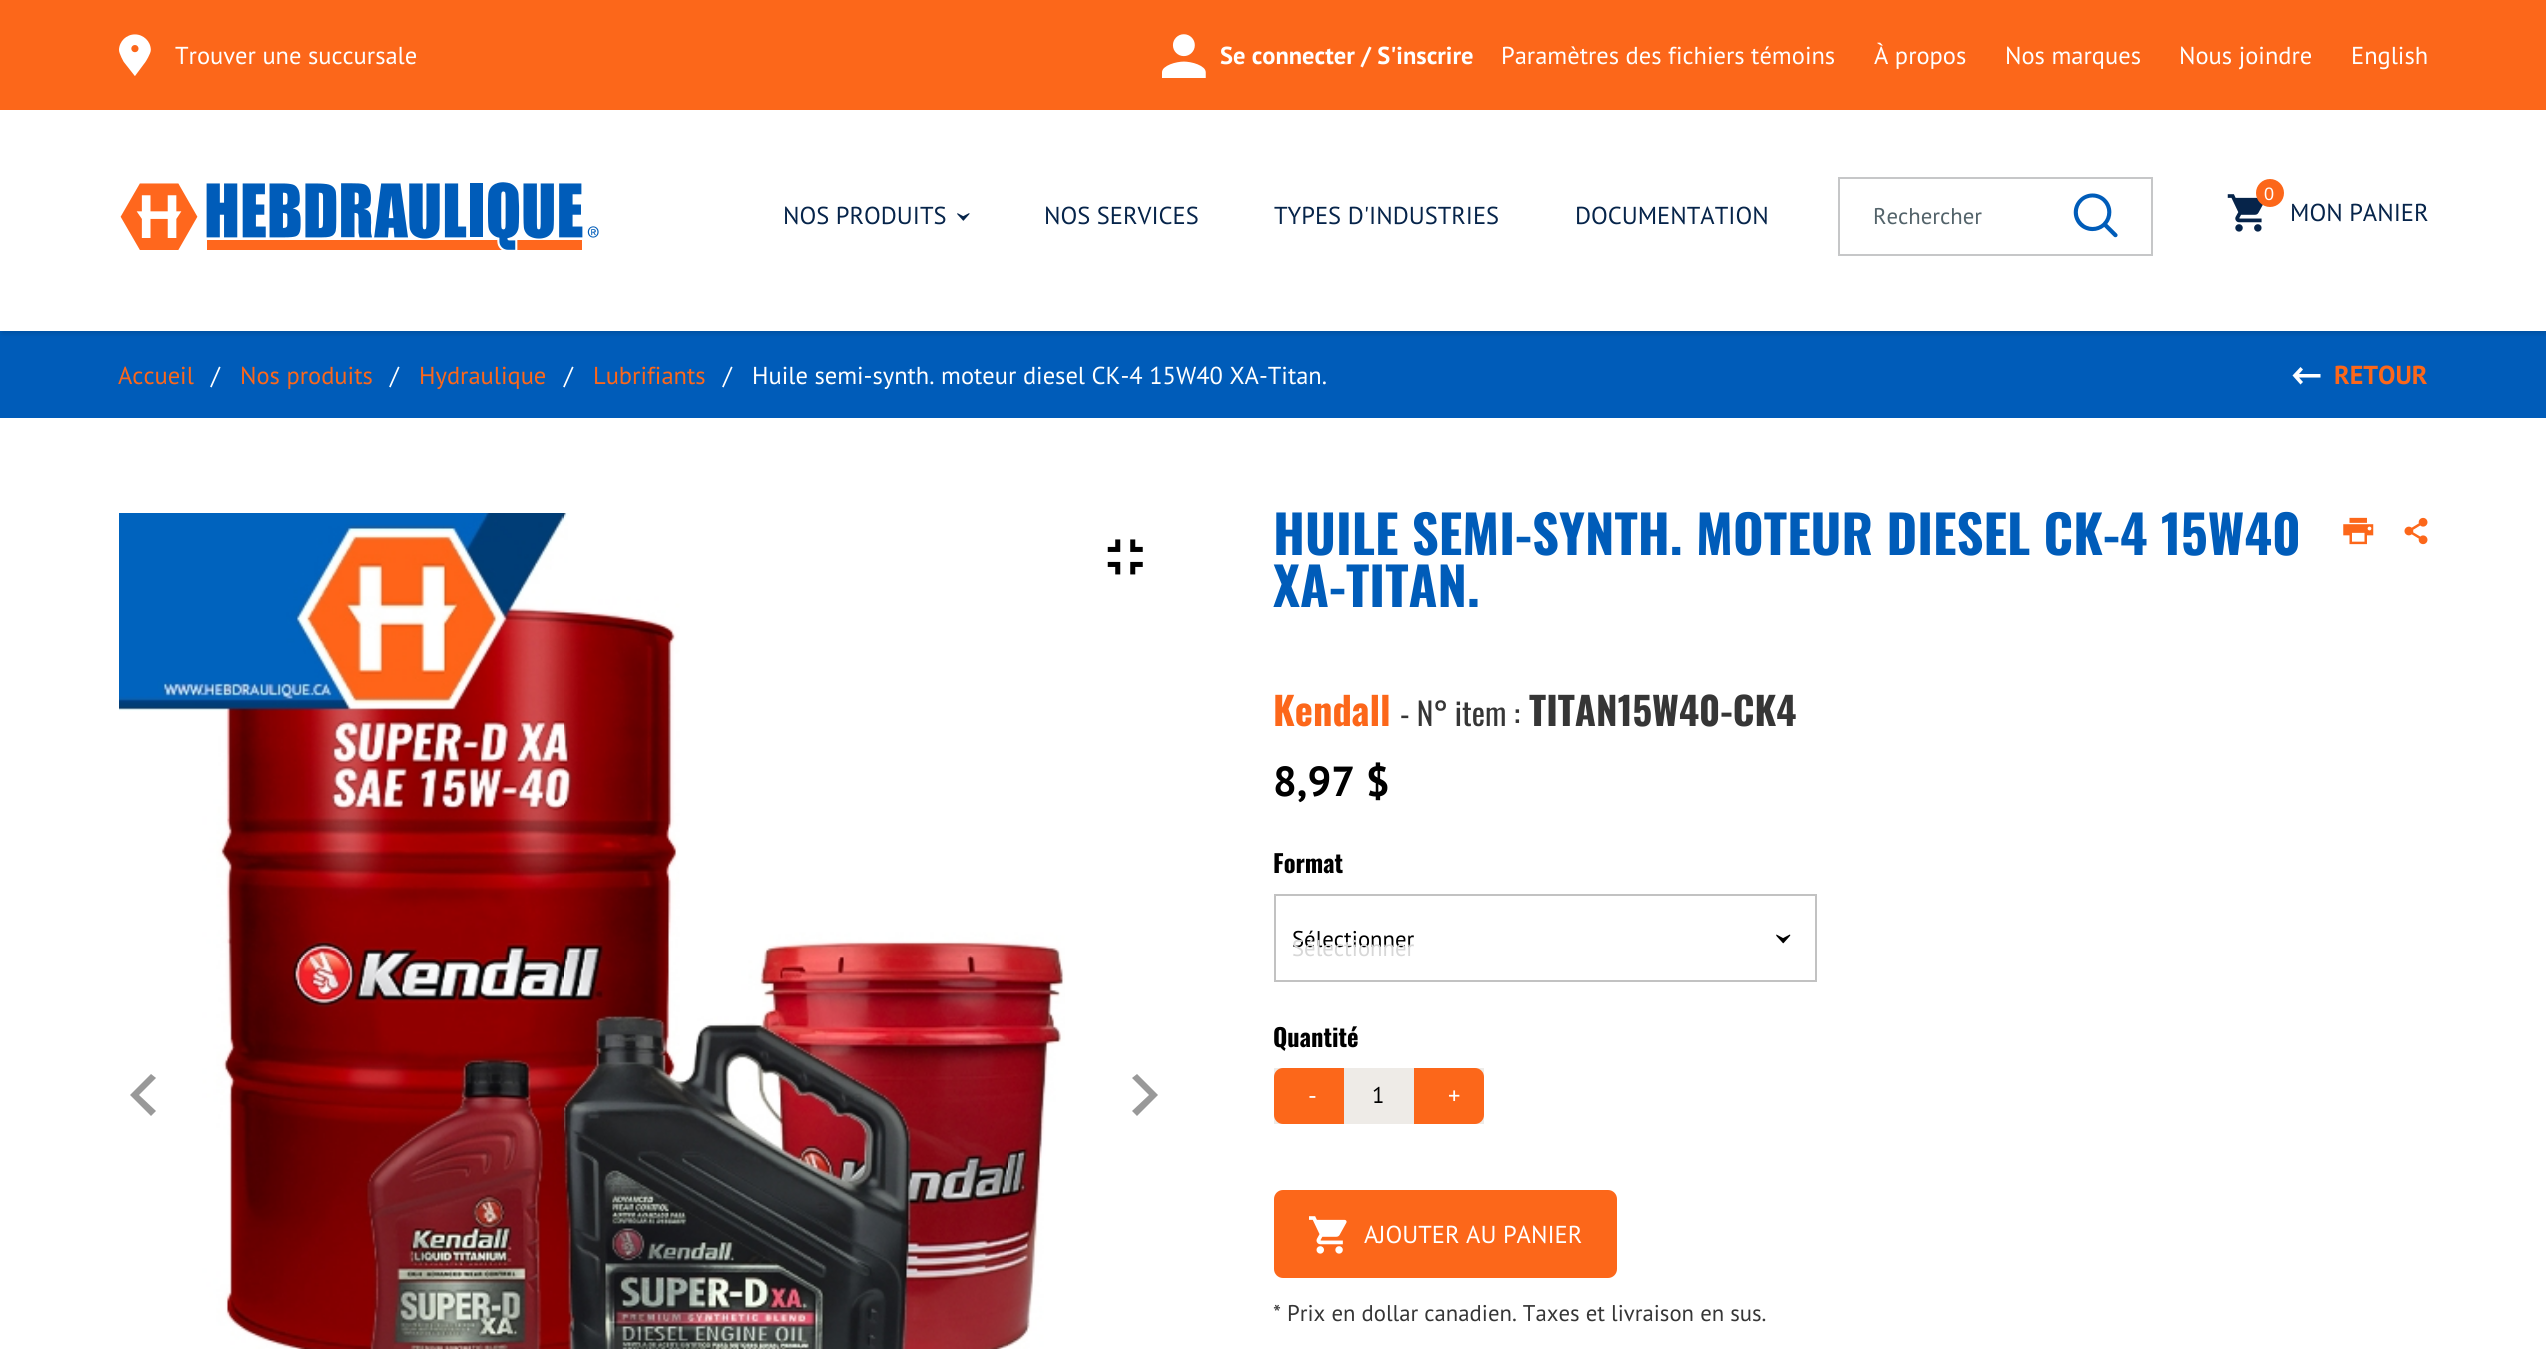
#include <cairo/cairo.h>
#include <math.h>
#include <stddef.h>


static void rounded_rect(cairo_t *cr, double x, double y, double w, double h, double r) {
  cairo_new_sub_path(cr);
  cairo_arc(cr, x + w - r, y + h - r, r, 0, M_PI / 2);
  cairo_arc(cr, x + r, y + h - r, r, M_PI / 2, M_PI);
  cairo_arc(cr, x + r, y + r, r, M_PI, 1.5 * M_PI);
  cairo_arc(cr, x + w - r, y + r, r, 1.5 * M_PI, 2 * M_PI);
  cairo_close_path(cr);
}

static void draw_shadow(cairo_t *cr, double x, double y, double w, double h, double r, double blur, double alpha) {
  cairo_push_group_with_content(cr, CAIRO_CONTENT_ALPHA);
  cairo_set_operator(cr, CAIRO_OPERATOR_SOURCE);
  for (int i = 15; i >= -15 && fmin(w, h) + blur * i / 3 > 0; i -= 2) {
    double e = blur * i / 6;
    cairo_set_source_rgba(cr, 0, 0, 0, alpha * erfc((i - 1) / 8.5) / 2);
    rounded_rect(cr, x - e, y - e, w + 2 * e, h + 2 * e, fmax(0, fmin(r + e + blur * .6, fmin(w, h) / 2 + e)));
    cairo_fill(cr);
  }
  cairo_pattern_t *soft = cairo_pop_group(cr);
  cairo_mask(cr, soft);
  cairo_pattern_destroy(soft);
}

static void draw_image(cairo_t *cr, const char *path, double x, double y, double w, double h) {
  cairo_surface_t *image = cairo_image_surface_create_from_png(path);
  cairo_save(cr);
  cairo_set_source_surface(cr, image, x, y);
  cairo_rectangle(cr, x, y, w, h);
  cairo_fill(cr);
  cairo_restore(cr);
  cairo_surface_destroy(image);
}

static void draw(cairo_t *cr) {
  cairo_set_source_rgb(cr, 1, 1, 1);
  cairo_paint(cr);
  cairo_set_source_rgb(cr, 0, 92 / 255.0, 185 / 255.0);
  cairo_rectangle(cr, 0, 331, 2546, 87);
  cairo_fill(cr);
  cairo_set_source_rgb(cr, 0, 0, 0);
  draw_shadow(cr, 2, 112, 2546, 221, 0, 2.5, 0.15);
  cairo_set_source_rgb(cr, 252 / 255.0, 103 / 255.0, 26 / 255.0);
  cairo_rectangle(cr, 0, 0, 2546, 110);
  cairo_fill(cr);
  draw_image(cr, "images/1.png", 119, 34, 32, 42);
  draw_image(cr, "images/2.png", 1162, 34, 44, 44);
  cairo_set_source_rgb(cr, 1, 1, 1);
  cairo_rectangle(cr, 0, 110, 2546, 221);
  cairo_fill(cr);
  draw_image(cr, "images/3.png", 120, 182, 479, 68);
  draw_image(cr, "images/4.png", 957, 213, 13, 8);
  cairo_rectangle(cr, 1839, 178, 313, 77);
  cairo_set_source_rgb(cr, 198 / 255.0, 199 / 255.0, 200 / 255.0);
  cairo_stroke(cr);
  draw_image(cr, "images/5.png", 2073, 193, 45, 45);
  draw_image(cr, "images/6.png", 2227, 194, 36, 38);
  cairo_set_source_rgb(cr, 252 / 255.0, 103 / 255.0, 26 / 255.0);
  cairo_arc(cr, 2270, 193, 14, 0, 2 * M_PI);
  cairo_fill(cr);
  cairo_set_source_rgb(cr, 1, 1, 1);
  cairo_new_path(cr);
  cairo_move_to(cr, 2303, 382);
  cairo_line_to(cr, 2299, 377.5);
  cairo_line_to(cr, 2320.5, 377.5);
  cairo_line_to(cr, 2320.5, 374);
  cairo_line_to(cr, 2299, 374);
  cairo_line_to(cr, 2303, 369.5);
  cairo_line_to(cr, 2300.5, 367);
  cairo_line_to(cr, 2292.5, 375.5);
  cairo_line_to(cr, 2300.5, 384.5);
  cairo_close_path(cr);
  cairo_fill(cr);
  draw_image(cr, "images/7.png", 119, 513, 946, 836);
  draw_image(cr, "images/8.png", 1107, 539, 36, 36);
  cairo_set_source_rgb(cr, 153 / 255.0, 153 / 255.0, 153 / 255.0);
  cairo_new_path(cr);
  cairo_move_to(cr, 151, 1116);
  cairo_line_to(cr, 130, 1095);
  cairo_line_to(cr, 151, 1074);
  cairo_line_to(cr, 156, 1078);
  cairo_line_to(cr, 139, 1095);
  cairo_line_to(cr, 156, 1111);
  cairo_close_path(cr);
  cairo_fill(cr);
  cairo_new_path(cr);
  cairo_move_to(cr, 1137, 1116);
  cairo_line_to(cr, 1158, 1095);
  cairo_line_to(cr, 1137, 1074);
  cairo_line_to(cr, 1132, 1078);
  cairo_line_to(cr, 1149, 1095);
  cairo_line_to(cr, 1132, 1111);
  cairo_close_path(cr);
  cairo_fill(cr);
  draw_image(cr, "images/9.png", 2343, 517, 31, 28);
  draw_image(cr, "images/10.png", 2404, 517, 24, 28);
  cairo_rectangle(cr, 1275, 895, 541, 86);
  cairo_set_source_rgb(cr, 194 / 255.0, 194 / 255.0, 194 / 255.0);
  cairo_stroke(cr);
  draw_image(cr, "images/11.png", 1776, 934, 15, 10);
  cairo_set_source_rgb(cr, 238 / 255.0, 235 / 255.0, 231 / 255.0);
  cairo_rectangle(cr, 1274, 1068, 210, 56);
  cairo_fill(cr);
  cairo_set_source_rgb(cr, 252 / 255.0, 103 / 255.0, 26 / 255.0);
  cairo_new_path(cr);
  cairo_move_to(cr, 1283, 1068);
  cairo_line_to(cr, 1344, 1068);
  cairo_line_to(cr, 1344, 1124);
  cairo_line_to(cr, 1283, 1124);
  cairo_curve_to(cr, 1278, 1124, 1274, 1120, 1274, 1115);
  cairo_line_to(cr, 1274, 1077);
  cairo_curve_to(cr, 1274, 1072, 1278, 1068, 1283, 1068);
  cairo_close_path(cr);
  cairo_fill(cr);
  cairo_new_path(cr);
  cairo_move_to(cr, 1414, 1068);
  cairo_line_to(cr, 1475, 1068);
  cairo_curve_to(cr, 1480, 1068, 1484, 1072, 1484, 1077);
  cairo_line_to(cr, 1484, 1115);
  cairo_curve_to(cr, 1484, 1120, 1480, 1124, 1475, 1124);
  cairo_line_to(cr, 1414, 1124);
  cairo_close_path(cr);
  cairo_fill(cr);
  rounded_rect(cr, 1274, 1190, 343, 88, 9);
  cairo_fill(cr);
  draw_image(cr, "images/12.png", 1309, 1216, 38, 38);
  cairo_select_font_face(cr, "PT Sans", CAIRO_FONT_SLANT_NORMAL, CAIRO_FONT_WEIGHT_NORMAL);
  cairo_set_font_size(cr, 24.5);
  cairo_set_source_rgb(cr, 1, 1, 1);
  cairo_move_to(cr, 175, 64);
  cairo_show_text(cr, "Trouver une succursale");
  cairo_select_font_face(cr, "PT Sans", CAIRO_FONT_SLANT_NORMAL, CAIRO_FONT_WEIGHT_BOLD);
  cairo_move_to(cr, 1220, 64);
  cairo_show_text(cr, "Se connecter / S'inscrire");
  cairo_select_font_face(cr, "PT Sans", CAIRO_FONT_SLANT_NORMAL, CAIRO_FONT_WEIGHT_NORMAL);
  cairo_move_to(cr, 1501, 64);
  cairo_show_text(cr, "Paramètres des fichiers témoins");
  cairo_move_to(cr, 1874, 64);
  cairo_show_text(cr, "À propos");
  cairo_move_to(cr, 2005, 64);
  cairo_show_text(cr, "Nos marques");
  cairo_move_to(cr, 2179, 64);
  cairo_show_text(cr, "Nous joindre");
  cairo_move_to(cr, 2351, 64);
  cairo_show_text(cr, "English");
  cairo_set_source_rgb(cr, 6 / 255.0, 36 / 255.0, 74 / 255.0);
  cairo_move_to(cr, 783, 224);
  cairo_show_text(cr, "NOS PRODUITS");
  cairo_move_to(cr, 1044, 224);
  cairo_show_text(cr, "NOS SERVICES");
  cairo_move_to(cr, 1274, 224);
  cairo_show_text(cr, "TYPES D'INDUSTRIES");
  cairo_move_to(cr, 1575, 224);
  cairo_show_text(cr, "DOCUMENTATION");
  cairo_set_font_size(cr, 22.75);
  cairo_set_source_rgb(cr, 83 / 255.0, 99 / 255.0, 106 / 255.0);
  cairo_move_to(cr, 1873, 224);
  cairo_show_text(cr, "Rechercher");
  cairo_select_font_face(cr, "Liberation Sans", CAIRO_FONT_SLANT_NORMAL, CAIRO_FONT_WEIGHT_NORMAL);
  cairo_set_font_size(cr, 18);
  cairo_set_source_rgb(cr, 1, 1, 1);
  cairo_move_to(cr, 2264, 200);
  cairo_show_text(cr, "0");
  cairo_select_font_face(cr, "PT Sans", CAIRO_FONT_SLANT_NORMAL, CAIRO_FONT_WEIGHT_NORMAL);
  cairo_set_font_size(cr, 24.5);
  cairo_set_source_rgb(cr, 6 / 255.0, 36 / 255.0, 74 / 255.0);
  cairo_move_to(cr, 2290, 221);
  cairo_show_text(cr, "MON PANIER");
  cairo_set_source_rgb(cr, 252 / 255.0, 103 / 255.0, 26 / 255.0);
  cairo_move_to(cr, 118, 384);
  cairo_show_text(cr, "Accueil");
  cairo_set_source_rgb(cr, 1, 1, 1);
  cairo_move_to(cr, 211, 384);
  cairo_show_text(cr, "/");
  cairo_set_source_rgb(cr, 252 / 255.0, 103 / 255.0, 26 / 255.0);
  cairo_move_to(cr, 240, 384);
  cairo_show_text(cr, "Nos produits");
  cairo_set_source_rgb(cr, 1, 1, 1);
  cairo_move_to(cr, 390, 384);
  cairo_show_text(cr, "/");
  cairo_set_source_rgb(cr, 252 / 255.0, 103 / 255.0, 26 / 255.0);
  cairo_move_to(cr, 419, 384);
  cairo_show_text(cr, "Hydraulique");
  cairo_set_source_rgb(cr, 1, 1, 1);
  cairo_move_to(cr, 564, 384);
  cairo_show_text(cr, "/");
  cairo_set_source_rgb(cr, 252 / 255.0, 103 / 255.0, 26 / 255.0);
  cairo_move_to(cr, 593, 384);
  cairo_show_text(cr, "Lubrifiants");
  cairo_set_source_rgb(cr, 1, 1, 1);
  cairo_move_to(cr, 723, 384);
  cairo_show_text(cr, "/");
  cairo_move_to(cr, 752, 384);
  cairo_show_text(cr, "Huile semi-synth. moteur diesel CK-4 15W40 XA-Titan.");
  cairo_select_font_face(cr, "PT Sans", CAIRO_FONT_SLANT_NORMAL, CAIRO_FONT_WEIGHT_BOLD);
  cairo_set_font_size(cr, 26);
  cairo_set_source_rgb(cr, 252 / 255.0, 103 / 255.0, 26 / 255.0);
  cairo_move_to(cr, 2334, 384);
  cairo_show_text(cr, "RETOUR");
  cairo_select_font_face(cr, "Oswald", CAIRO_FONT_SLANT_NORMAL, CAIRO_FONT_WEIGHT_BOLD);
  cairo_set_font_size(cr, 52.5);
  cairo_set_source_rgb(cr, 0, 92 / 255.0, 185 / 255.0);
  cairo_move_to(cr, 1273, 555);
  cairo_show_text(cr, "HUILE SEMI-SYNTH. MOTEUR DIESEL CK-4 15W40");
  cairo_move_to(cr, 1273, 607);
  cairo_show_text(cr, "XA-TITAN.");
  cairo_set_font_size(cr, 38.5);
  cairo_set_source_rgb(cr, 252 / 255.0, 103 / 255.0, 26 / 255.0);
  cairo_move_to(cr, 1273, 726);
  cairo_show_text(cr, "Kendall");
  cairo_select_font_face(cr, "Oswald", CAIRO_FONT_SLANT_NORMAL, CAIRO_FONT_WEIGHT_NORMAL);
  cairo_set_font_size(cr, 31.5);
  cairo_set_source_rgb(cr, 54 / 255.0, 54 / 255.0, 54 / 255.0);
  cairo_move_to(cr, 1400, 726);
  cairo_show_text(cr, "- N° item :");
  cairo_select_font_face(cr, "Oswald", CAIRO_FONT_SLANT_NORMAL, CAIRO_FONT_WEIGHT_BOLD);
  cairo_set_font_size(cr, 38.5);
  cairo_move_to(cr, 1529, 726);
  cairo_show_text(cr, "TITAN15W40-CK4");
  cairo_select_font_face(cr, "PT Sans", CAIRO_FONT_SLANT_NORMAL, CAIRO_FONT_WEIGHT_BOLD);
  cairo_set_font_size(cr, 42);
  cairo_set_source_rgb(cr, 0, 0, 0);
  cairo_move_to(cr, 1273, 796);
  cairo_show_text(cr, "8,97 $");
  cairo_select_font_face(cr, "Oswald", CAIRO_FONT_SLANT_NORMAL, CAIRO_FONT_WEIGHT_BOLD);
  cairo_set_font_size(cr, 24.5);
  cairo_move_to(cr, 1273, 873);
  cairo_show_text(cr, "Format");
  cairo_select_font_face(cr, "PT Sans", CAIRO_FONT_SLANT_NORMAL, CAIRO_FONT_WEIGHT_NORMAL);
  cairo_set_font_size(cr, 22.75);
  cairo_move_to(cr, 1292, 947);
  cairo_show_text(cr, "Sélectionner");
  cairo_set_source_rgb(cr, 215 / 255.0, 215 / 255.0, 215 / 255.0);
  cairo_move_to(cr, 1292, 956);
  cairo_show_text(cr, "Sélectionner");
  cairo_select_font_face(cr, "Oswald", CAIRO_FONT_SLANT_NORMAL, CAIRO_FONT_WEIGHT_BOLD);
  cairo_set_font_size(cr, 24.5);
  cairo_set_source_rgb(cr, 0, 0, 0);
  cairo_move_to(cr, 1273, 1047);
  cairo_show_text(cr, "Quantité");
  cairo_select_font_face(cr, "PT Sans", CAIRO_FONT_SLANT_NORMAL, CAIRO_FONT_WEIGHT_NORMAL);
  cairo_set_source_rgb(cr, 1, 1, 1);
  cairo_move_to(cr, 1308, 1104);
  cairo_show_text(cr, "-");
  cairo_set_font_size(cr, 22.75);
  cairo_set_source_rgb(cr, 0, 0, 0);
  cairo_move_to(cr, 1372, 1103);
  cairo_show_text(cr, "1");
  cairo_set_font_size(cr, 24.5);
  cairo_set_source_rgb(cr, 1, 1, 1);
  cairo_move_to(cr, 1448, 1104);
  cairo_show_text(cr, "+");
  cairo_move_to(cr, 1364, 1243);
  cairo_show_text(cr, "AJOUTER AU PANIER");
  cairo_set_font_size(cr, 22.75);
  cairo_set_source_rgb(cr, 54 / 255.0, 54 / 255.0, 54 / 255.0);
  cairo_move_to(cr, 1273, 1321);
  cairo_show_text(cr, "* Prix en dollar canadien. Taxes et livraison en sus.");
}

int main(void) {
  cairo_surface_t *surface = cairo_image_surface_create(CAIRO_FORMAT_RGB24, 2546, 1349);
  cairo_t *cr = cairo_create(surface);
  cairo_font_options_t *options = cairo_font_options_create();
  cairo_font_options_set_hint_metrics(options, CAIRO_HINT_METRICS_OFF);
  cairo_font_options_set_hint_style(options, CAIRO_HINT_STYLE_NONE);
  cairo_set_font_options(cr, options);
  cairo_set_miter_limit(cr, 4);
  draw(cr);
  cairo_surface_write_to_png(surface, "out.png");
  cairo_font_options_destroy(options);
  cairo_destroy(cr);
  cairo_surface_destroy(surface);
  return 0;
}
